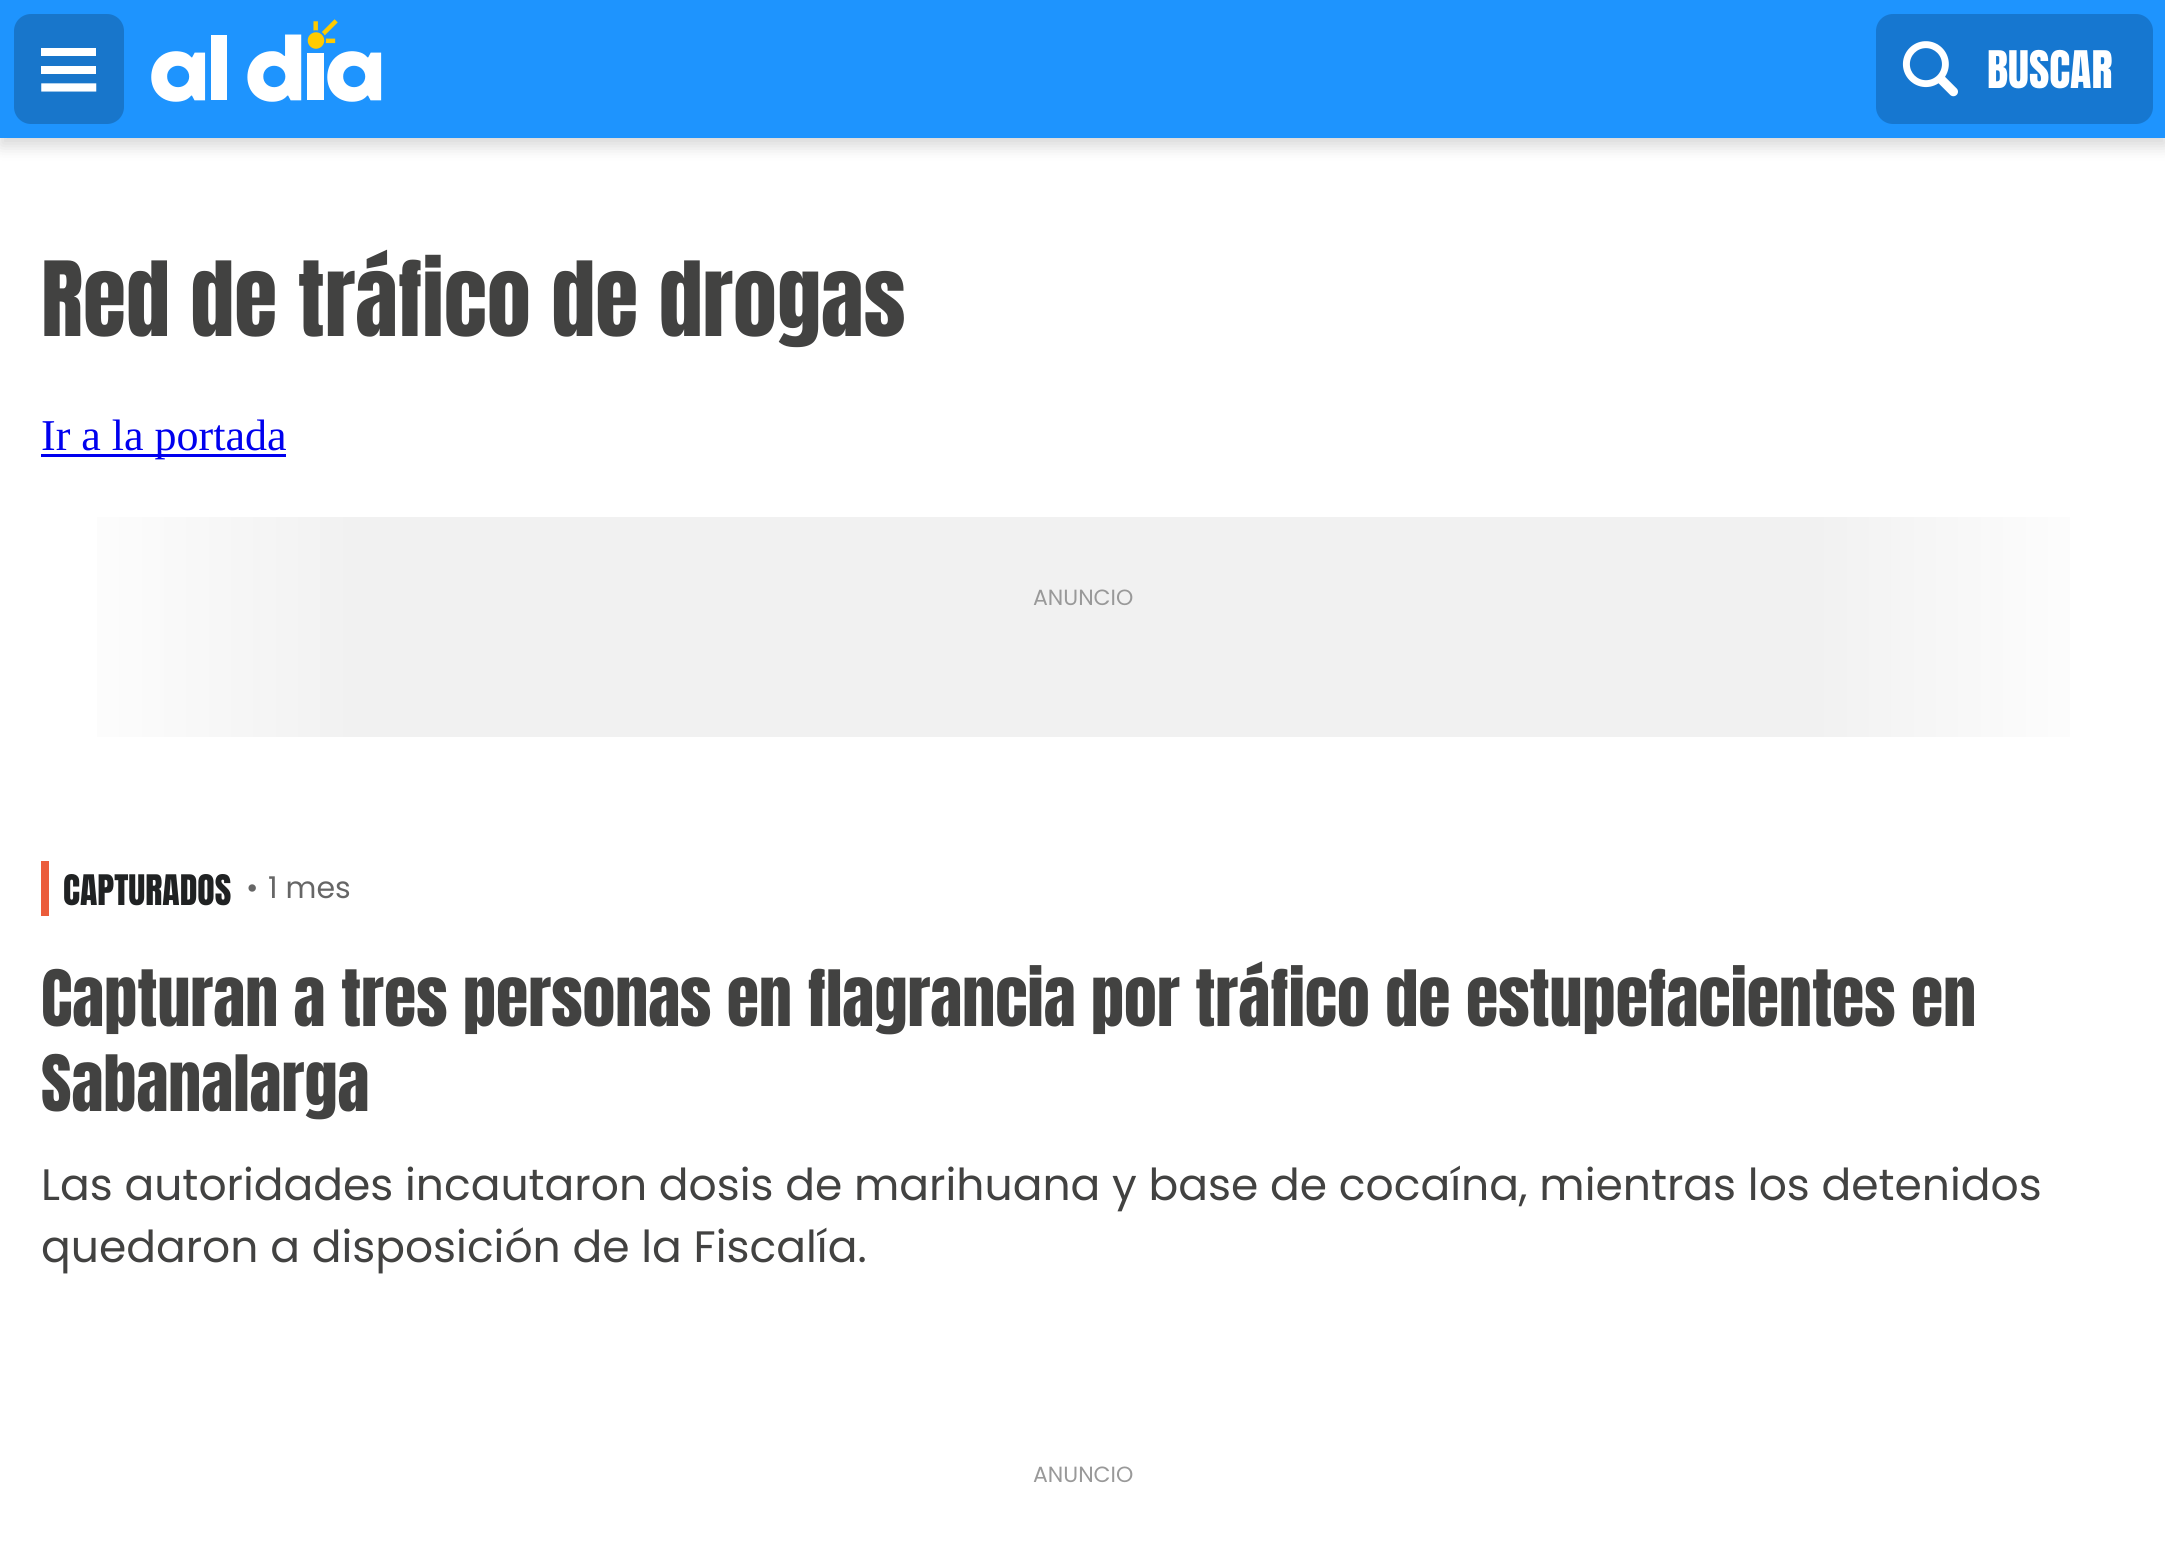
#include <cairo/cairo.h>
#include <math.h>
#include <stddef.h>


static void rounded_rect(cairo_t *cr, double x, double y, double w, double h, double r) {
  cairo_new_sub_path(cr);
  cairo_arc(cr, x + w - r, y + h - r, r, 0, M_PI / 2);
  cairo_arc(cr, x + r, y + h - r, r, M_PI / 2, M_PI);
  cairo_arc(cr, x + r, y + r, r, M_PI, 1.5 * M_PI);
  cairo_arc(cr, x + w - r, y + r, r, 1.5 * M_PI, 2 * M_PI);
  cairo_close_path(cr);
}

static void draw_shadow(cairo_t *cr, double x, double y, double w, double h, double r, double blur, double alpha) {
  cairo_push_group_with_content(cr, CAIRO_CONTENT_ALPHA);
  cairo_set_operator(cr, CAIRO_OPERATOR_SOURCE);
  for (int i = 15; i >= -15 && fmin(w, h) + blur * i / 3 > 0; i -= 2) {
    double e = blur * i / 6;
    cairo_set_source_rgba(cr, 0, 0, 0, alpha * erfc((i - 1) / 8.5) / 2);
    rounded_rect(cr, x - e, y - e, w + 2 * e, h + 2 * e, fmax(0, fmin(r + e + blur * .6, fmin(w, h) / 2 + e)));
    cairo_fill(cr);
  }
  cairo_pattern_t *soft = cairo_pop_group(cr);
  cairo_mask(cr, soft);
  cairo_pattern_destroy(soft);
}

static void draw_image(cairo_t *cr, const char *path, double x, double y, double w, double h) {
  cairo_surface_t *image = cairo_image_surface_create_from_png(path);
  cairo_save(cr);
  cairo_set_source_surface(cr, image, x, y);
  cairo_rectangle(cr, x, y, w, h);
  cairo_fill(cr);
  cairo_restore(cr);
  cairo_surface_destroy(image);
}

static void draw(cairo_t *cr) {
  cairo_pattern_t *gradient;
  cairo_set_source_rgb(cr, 1, 1, 1);
  cairo_paint(cr);
  cairo_set_source_rgb(cr, 0, 0, 0);
  draw_shadow(cr, 0, 8, 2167, 138, 0, 8, 0.16);
  cairo_set_source_rgb(cr, 30 / 255.0, 148 / 255.0, 254 / 255.0);
  cairo_rectangle(cr, 0, 0, 2165, 138);
  cairo_fill(cr);
  cairo_set_source_rgb(cr, 24 / 255.0, 118 / 255.0, 203 / 255.0);
  rounded_rect(cr, 14, 14, 110, 110, 17);
  cairo_fill(cr);
  draw_image(cr, "images/1.png", 41, 48, 56, 44);
  draw_image(cr, "images/2.png", 151, 19, 231, 83);
  cairo_set_source_rgb(cr, 22 / 255.0, 119 / 255.0, 208 / 255.0);
  rounded_rect(cr, 1876, 14, 277, 110, 17);
  cairo_fill(cr);
  draw_image(cr, "images/3.png", 1902, 41, 56, 56);
  cairo_set_source_rgb(cr, 0, 0, 238 / 255.0);
  cairo_rectangle(cr, 41, 454, 245, 3);
  cairo_fill(cr);
  gradient = cairo_pattern_create_linear(41, 627, 2126, 627);
  cairo_pattern_add_color_stop_rgba(gradient, 0, 1, 1, 1, 1);
  cairo_pattern_add_color_stop_rgba(gradient, 0.15, 241 / 255.0, 241 / 255.0, 241 / 255.0, 1);
  cairo_pattern_add_color_stop_rgba(gradient, 0.85, 241 / 255.0, 241 / 255.0, 241 / 255.0, 1);
  cairo_pattern_add_color_stop_rgba(gradient, 1, 1, 1, 1, 1);
  cairo_set_source(cr, gradient);
  cairo_pattern_destroy(gradient);
  cairo_rectangle(cr, 97, 517, 1973, 220);
  cairo_fill(cr);
  cairo_set_source_rgb(cr, 235 / 255.0, 92 / 255.0, 59 / 255.0);
  cairo_rectangle(cr, 41, 861, 8, 55);
  cairo_fill(cr);
  cairo_select_font_face(cr, "Anton", CAIRO_FONT_SLANT_NORMAL, CAIRO_FONT_WEIGHT_NORMAL);
  cairo_set_font_size(cr, 44);
  cairo_set_source_rgb(cr, 1, 1, 1);
  cairo_move_to(cr, 1987, 88);
  cairo_show_text(cr, "BUSCAR");
  cairo_set_font_size(cr, 88);
  cairo_set_source_rgb(cr, 66 / 255.0, 66 / 255.0, 65 / 255.0);
  cairo_move_to(cr, 41, 336);
  cairo_show_text(cr, "Red de tráfico de drogas");
  cairo_select_font_face(cr, "Liberation Serif", CAIRO_FONT_SLANT_NORMAL, CAIRO_FONT_WEIGHT_NORMAL);
  cairo_set_font_size(cr, 44);
  cairo_set_source_rgb(cr, 0, 0, 238 / 255.0);
  cairo_move_to(cr, 41, 450);
  cairo_show_text(cr, "Ir a la portada");
  cairo_select_font_face(cr, "Poppins", CAIRO_FONT_SLANT_NORMAL, CAIRO_FONT_WEIGHT_NORMAL);
  cairo_set_font_size(cr, 22);
  cairo_set_source_rgb(cr, 153 / 255.0, 153 / 255.0, 153 / 255.0);
  cairo_move_to(cr, 1033, 605);
  cairo_show_text(cr, "ANUNCIO");
  cairo_select_font_face(cr, "Anton", CAIRO_FONT_SLANT_NORMAL, CAIRO_FONT_WEIGHT_NORMAL);
  cairo_set_font_size(cr, 35.75);
  cairo_set_source_rgb(cr, 32 / 255.0, 34 / 255.0, 35 / 255.0);
  cairo_move_to(cr, 63, 905);
  cairo_show_text(cr, "CAPTURADOS");
  cairo_select_font_face(cr, "Poppins", CAIRO_FONT_SLANT_NORMAL, CAIRO_FONT_WEIGHT_NORMAL);
  cairo_set_font_size(cr, 30);
  cairo_set_source_rgb(cr, 102 / 255.0, 102 / 255.0, 102 / 255.0);
  cairo_move_to(cr, 246, 898);
  cairo_show_text(cr, "•");
  cairo_move_to(cr, 268, 898);
  cairo_show_text(cr, "1 mes");
  cairo_select_font_face(cr, "Anton", CAIRO_FONT_SLANT_NORMAL, CAIRO_FONT_WEIGHT_NORMAL);
  cairo_set_font_size(cr, 66);
  cairo_set_source_rgb(cr, 66 / 255.0, 66 / 255.0, 65 / 255.0);
  cairo_move_to(cr, 41, 1026);
  cairo_show_text(cr, "Capturan a tres personas en flagrancia por tráfico de estupefacientes en");
  cairo_move_to(cr, 41, 1111);
  cairo_show_text(cr, "Sabanalarga");
  cairo_select_font_face(cr, "Poppins", CAIRO_FONT_SLANT_NORMAL, CAIRO_FONT_WEIGHT_NORMAL);
  cairo_set_font_size(cr, 44);
  cairo_move_to(cr, 41, 1200);
  cairo_show_text(cr, "Las autoridades incautaron dosis de marihuana y base de cocaína, mientras los detenidos");
  cairo_move_to(cr, 41, 1262);
  cairo_show_text(cr, "quedaron a disposición de la Fiscalía.");
  cairo_set_font_size(cr, 22);
  cairo_set_source_rgb(cr, 153 / 255.0, 153 / 255.0, 153 / 255.0);
  cairo_move_to(cr, 1033, 1482);
  cairo_show_text(cr, "ANUNCIO");
}

int main(void) {
  cairo_surface_t *surface = cairo_image_surface_create(CAIRO_FORMAT_RGB24, 2165, 1558);
  cairo_t *cr = cairo_create(surface);
  cairo_font_options_t *options = cairo_font_options_create();
  cairo_font_options_set_hint_metrics(options, CAIRO_HINT_METRICS_OFF);
  cairo_font_options_set_hint_style(options, CAIRO_HINT_STYLE_NONE);
  cairo_set_font_options(cr, options);
  cairo_set_miter_limit(cr, 4);
  draw(cr);
  cairo_surface_write_to_png(surface, "out.png");
  cairo_font_options_destroy(options);
  cairo_destroy(cr);
  cairo_surface_destroy(surface);
  return 0;
}
